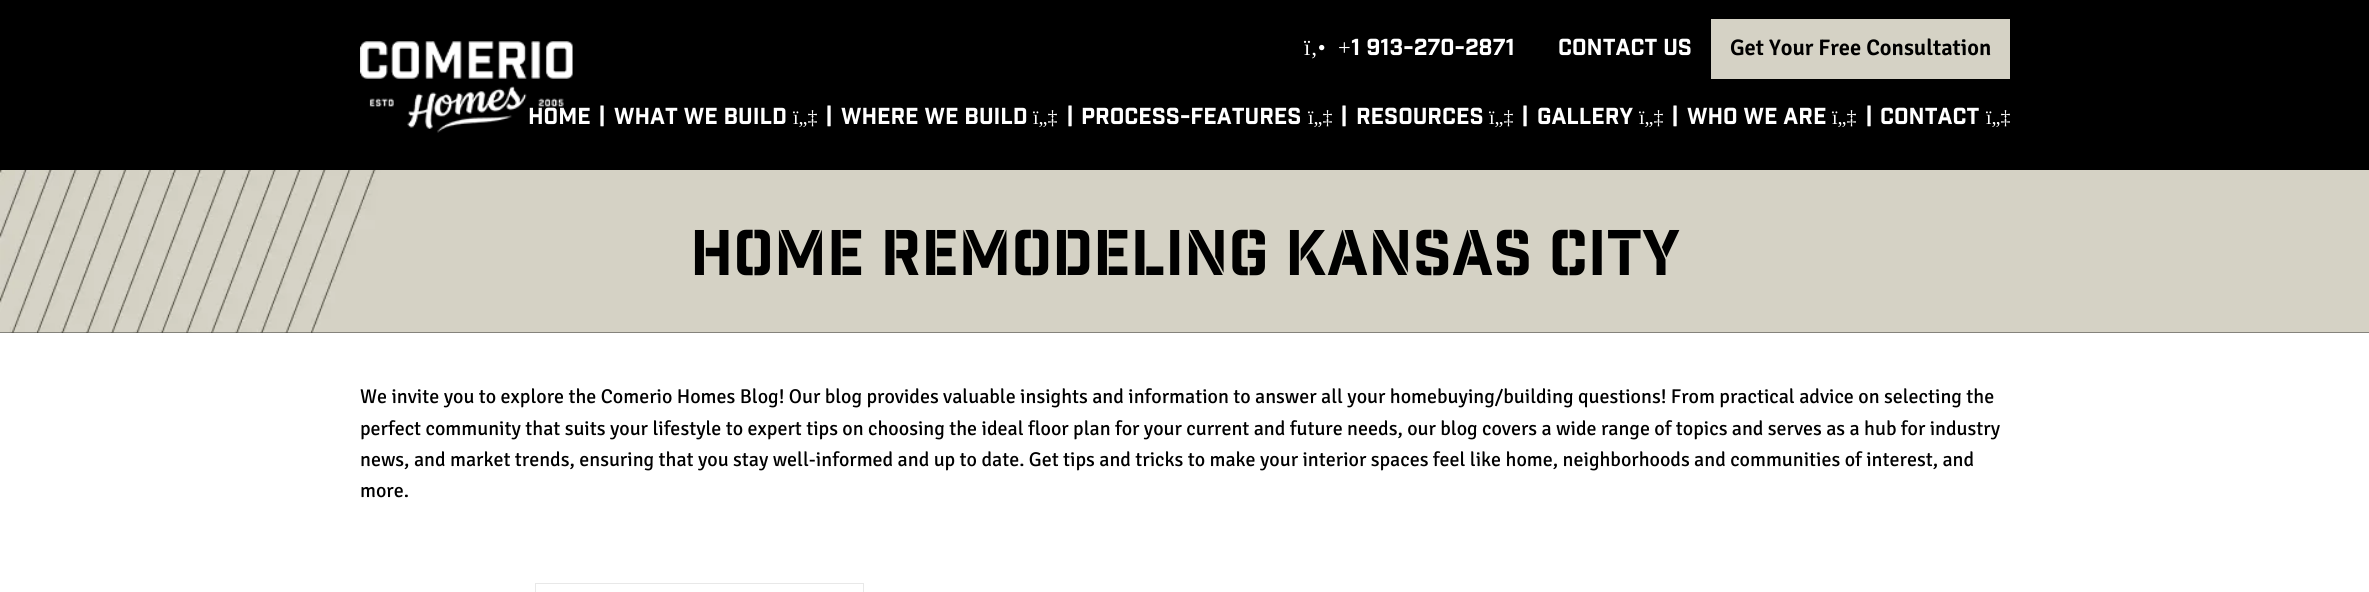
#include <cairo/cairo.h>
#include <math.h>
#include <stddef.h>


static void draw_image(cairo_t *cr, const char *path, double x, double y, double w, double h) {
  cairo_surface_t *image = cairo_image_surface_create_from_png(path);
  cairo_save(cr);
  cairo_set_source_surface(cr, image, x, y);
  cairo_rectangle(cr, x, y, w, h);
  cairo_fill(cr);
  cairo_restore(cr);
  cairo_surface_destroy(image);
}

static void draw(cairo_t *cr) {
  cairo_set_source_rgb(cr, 1, 1, 1);
  cairo_paint(cr);
  cairo_set_source_rgb(cr, 0, 0, 0);
  cairo_rectangle(cr, 0, 0, 2369, 170);
  cairo_fill(cr);
  cairo_set_source_rgb(cr, 213 / 255.0, 210 / 255.0, 197 / 255.0);
  cairo_rectangle(cr, 1711, 19, 299, 60);
  cairo_fill(cr);
  draw_image(cr, "images/1.png", 360, 41, 213, 92);
  cairo_set_source_rgb(cr, 52 / 255.0, 52 / 255.0, 50 / 255.0);
  cairo_rectangle(cr, 0, 332, 2369, 1);
  cairo_fill(cr);
  draw_image(cr, "images/2.png", 0, 170, 2369, 163);
  cairo_rectangle(cr, 535.5, 583.5, 328, 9);
  cairo_set_source_rgb(cr, 232 / 255.0, 232 / 255.0, 232 / 255.0);
  cairo_set_line_width(cr, 1);
  cairo_stroke(cr);
  cairo_select_font_face(cr, "Liberation Serif", CAIRO_FONT_SLANT_NORMAL, CAIRO_FONT_WEIGHT_NORMAL);
  cairo_set_font_size(cr, 22.5);
  cairo_set_source_rgb(cr, 1, 1, 1);
  cairo_move_to(cr, 1304, 55);
  cairo_show_text(cr, "ï‚•");
  cairo_move_to(cr, 1338, 55);
  cairo_show_text(cr, "+");
  cairo_select_font_face(cr, "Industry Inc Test", CAIRO_FONT_SLANT_NORMAL, CAIRO_FONT_WEIGHT_NORMAL);
  cairo_move_to(cr, 1351, 55);
  cairo_show_text(cr, "1 913-270-2871");
  cairo_move_to(cr, 1558, 55);
  cairo_show_text(cr, "CONTACT US");
  cairo_select_font_face(cr, "Signika SemiBold", CAIRO_FONT_SLANT_NORMAL, CAIRO_FONT_WEIGHT_NORMAL);
  cairo_set_source_rgb(cr, 0, 0, 0);
  cairo_move_to(cr, 1730, 55);
  cairo_show_text(cr, "Get Your Free Consultation");
  cairo_select_font_face(cr, "Industry Inc Test", CAIRO_FONT_SLANT_NORMAL, CAIRO_FONT_WEIGHT_NORMAL);
  cairo_set_source_rgb(cr, 1, 1, 1);
  cairo_move_to(cr, 528, 124);
  cairo_show_text(cr, "Home");
  cairo_select_font_face(cr, "Signika", CAIRO_FONT_SLANT_NORMAL, CAIRO_FONT_WEIGHT_BOLD);
  cairo_move_to(cr, 599, 123);
  cairo_show_text(cr, "|");
  cairo_select_font_face(cr, "Industry Inc Test", CAIRO_FONT_SLANT_NORMAL, CAIRO_FONT_WEIGHT_NORMAL);
  cairo_move_to(cr, 614, 124);
  cairo_show_text(cr, "What We Build");
  cairo_select_font_face(cr, "Liberation Serif", CAIRO_FONT_SLANT_NORMAL, CAIRO_FONT_WEIGHT_NORMAL);
  cairo_set_font_size(cr, 20);
  cairo_move_to(cr, 793, 124);
  cairo_show_text(cr, "ï„‡");
  cairo_select_font_face(cr, "Signika", CAIRO_FONT_SLANT_NORMAL, CAIRO_FONT_WEIGHT_BOLD);
  cairo_set_font_size(cr, 22.5);
  cairo_move_to(cr, 826, 123);
  cairo_show_text(cr, "|");
  cairo_select_font_face(cr, "Industry Inc Test", CAIRO_FONT_SLANT_NORMAL, CAIRO_FONT_WEIGHT_NORMAL);
  cairo_move_to(cr, 841, 124);
  cairo_show_text(cr, "Where We Build");
  cairo_select_font_face(cr, "Liberation Serif", CAIRO_FONT_SLANT_NORMAL, CAIRO_FONT_WEIGHT_NORMAL);
  cairo_set_font_size(cr, 20);
  cairo_move_to(cr, 1033, 124);
  cairo_show_text(cr, "ï„‡");
  cairo_select_font_face(cr, "Signika", CAIRO_FONT_SLANT_NORMAL, CAIRO_FONT_WEIGHT_BOLD);
  cairo_set_font_size(cr, 22.5);
  cairo_move_to(cr, 1067, 123);
  cairo_show_text(cr, "|");
  cairo_select_font_face(cr, "Industry Inc Test", CAIRO_FONT_SLANT_NORMAL, CAIRO_FONT_WEIGHT_NORMAL);
  cairo_move_to(cr, 1081, 124);
  cairo_show_text(cr, "Process-Features");
  cairo_select_font_face(cr, "Liberation Serif", CAIRO_FONT_SLANT_NORMAL, CAIRO_FONT_WEIGHT_NORMAL);
  cairo_set_font_size(cr, 20);
  cairo_move_to(cr, 1308, 124);
  cairo_show_text(cr, "ï„‡");
  cairo_select_font_face(cr, "Signika", CAIRO_FONT_SLANT_NORMAL, CAIRO_FONT_WEIGHT_BOLD);
  cairo_set_font_size(cr, 22.5);
  cairo_move_to(cr, 1341, 123);
  cairo_show_text(cr, "|");
  cairo_select_font_face(cr, "Industry Inc Test", CAIRO_FONT_SLANT_NORMAL, CAIRO_FONT_WEIGHT_NORMAL);
  cairo_move_to(cr, 1356, 124);
  cairo_show_text(cr, "Resources");
  cairo_select_font_face(cr, "Liberation Serif", CAIRO_FONT_SLANT_NORMAL, CAIRO_FONT_WEIGHT_NORMAL);
  cairo_set_font_size(cr, 20);
  cairo_move_to(cr, 1489, 124);
  cairo_show_text(cr, "ï„‡");
  cairo_select_font_face(cr, "Signika", CAIRO_FONT_SLANT_NORMAL, CAIRO_FONT_WEIGHT_BOLD);
  cairo_set_font_size(cr, 22.5);
  cairo_move_to(cr, 1522, 123);
  cairo_show_text(cr, "|");
  cairo_select_font_face(cr, "Industry Inc Test", CAIRO_FONT_SLANT_NORMAL, CAIRO_FONT_WEIGHT_NORMAL);
  cairo_move_to(cr, 1537, 124);
  cairo_show_text(cr, "Gallery");
  cairo_select_font_face(cr, "Liberation Serif", CAIRO_FONT_SLANT_NORMAL, CAIRO_FONT_WEIGHT_NORMAL);
  cairo_set_font_size(cr, 20);
  cairo_move_to(cr, 1639, 124);
  cairo_show_text(cr, "ï„‡");
  cairo_select_font_face(cr, "Signika", CAIRO_FONT_SLANT_NORMAL, CAIRO_FONT_WEIGHT_BOLD);
  cairo_set_font_size(cr, 22.5);
  cairo_move_to(cr, 1672, 123);
  cairo_show_text(cr, "|");
  cairo_select_font_face(cr, "Industry Inc Test", CAIRO_FONT_SLANT_NORMAL, CAIRO_FONT_WEIGHT_NORMAL);
  cairo_move_to(cr, 1687, 124);
  cairo_show_text(cr, "Who We Are");
  cairo_select_font_face(cr, "Liberation Serif", CAIRO_FONT_SLANT_NORMAL, CAIRO_FONT_WEIGHT_NORMAL);
  cairo_set_font_size(cr, 20);
  cairo_move_to(cr, 1832, 124);
  cairo_show_text(cr, "ï„‡");
  cairo_select_font_face(cr, "Signika", CAIRO_FONT_SLANT_NORMAL, CAIRO_FONT_WEIGHT_BOLD);
  cairo_set_font_size(cr, 22.5);
  cairo_move_to(cr, 1866, 123);
  cairo_show_text(cr, "|");
  cairo_select_font_face(cr, "Industry Inc Test", CAIRO_FONT_SLANT_NORMAL, CAIRO_FONT_WEIGHT_NORMAL);
  cairo_move_to(cr, 1880, 124);
  cairo_show_text(cr, "Contact");
  cairo_select_font_face(cr, "Liberation Serif", CAIRO_FONT_SLANT_NORMAL, CAIRO_FONT_WEIGHT_NORMAL);
  cairo_set_font_size(cr, 20);
  cairo_move_to(cr, 1986, 124);
  cairo_show_text(cr, "ï„‡");
  cairo_select_font_face(cr, "Industry Inc Test", CAIRO_FONT_SLANT_NORMAL, CAIRO_FONT_WEIGHT_BOLD);
  cairo_set_font_size(cr, 62.5);
  cairo_set_source_rgb(cr, 0, 0, 0);
  cairo_move_to(cr, 690, 275);
  cairo_show_text(cr, "Home Remodeling Kansas City");
  cairo_select_font_face(cr, "Signika", CAIRO_FONT_SLANT_NORMAL, CAIRO_FONT_WEIGHT_NORMAL);
  cairo_set_font_size(cr, 20);
  cairo_move_to(cr, 360, 403);
  cairo_show_text(cr, "We invite you to explore the Comerio Homes Blog! Our blog provides valuable insights and information to answer all your homebuying/building questions! From practical advice on selecting the");
  cairo_move_to(cr, 360, 435);
  cairo_show_text(cr, "perfect community that suits your lifestyle to expert tips on choosing the ideal floor plan for your current and future needs, our blog covers a wide range of topics and serves as a hub for industry");
  cairo_move_to(cr, 360, 466);
  cairo_show_text(cr, "news, and market trends, ensuring that you stay well-informed and up to date. Get tips and tricks to make your interior spaces feel like home, neighborhoods and communities of interest, and");
  cairo_move_to(cr, 360, 497);
  cairo_show_text(cr, "more.");
}

int main(void) {
  cairo_surface_t *surface = cairo_image_surface_create(CAIRO_FORMAT_RGB24, 2369, 592);
  cairo_t *cr = cairo_create(surface);
  cairo_font_options_t *options = cairo_font_options_create();
  cairo_font_options_set_hint_metrics(options, CAIRO_HINT_METRICS_OFF);
  cairo_font_options_set_hint_style(options, CAIRO_HINT_STYLE_NONE);
  cairo_set_font_options(cr, options);
  cairo_set_miter_limit(cr, 4);
  draw(cr);
  cairo_surface_write_to_png(surface, "out.png");
  cairo_font_options_destroy(options);
  cairo_destroy(cr);
  cairo_surface_destroy(surface);
  return 0;
}
